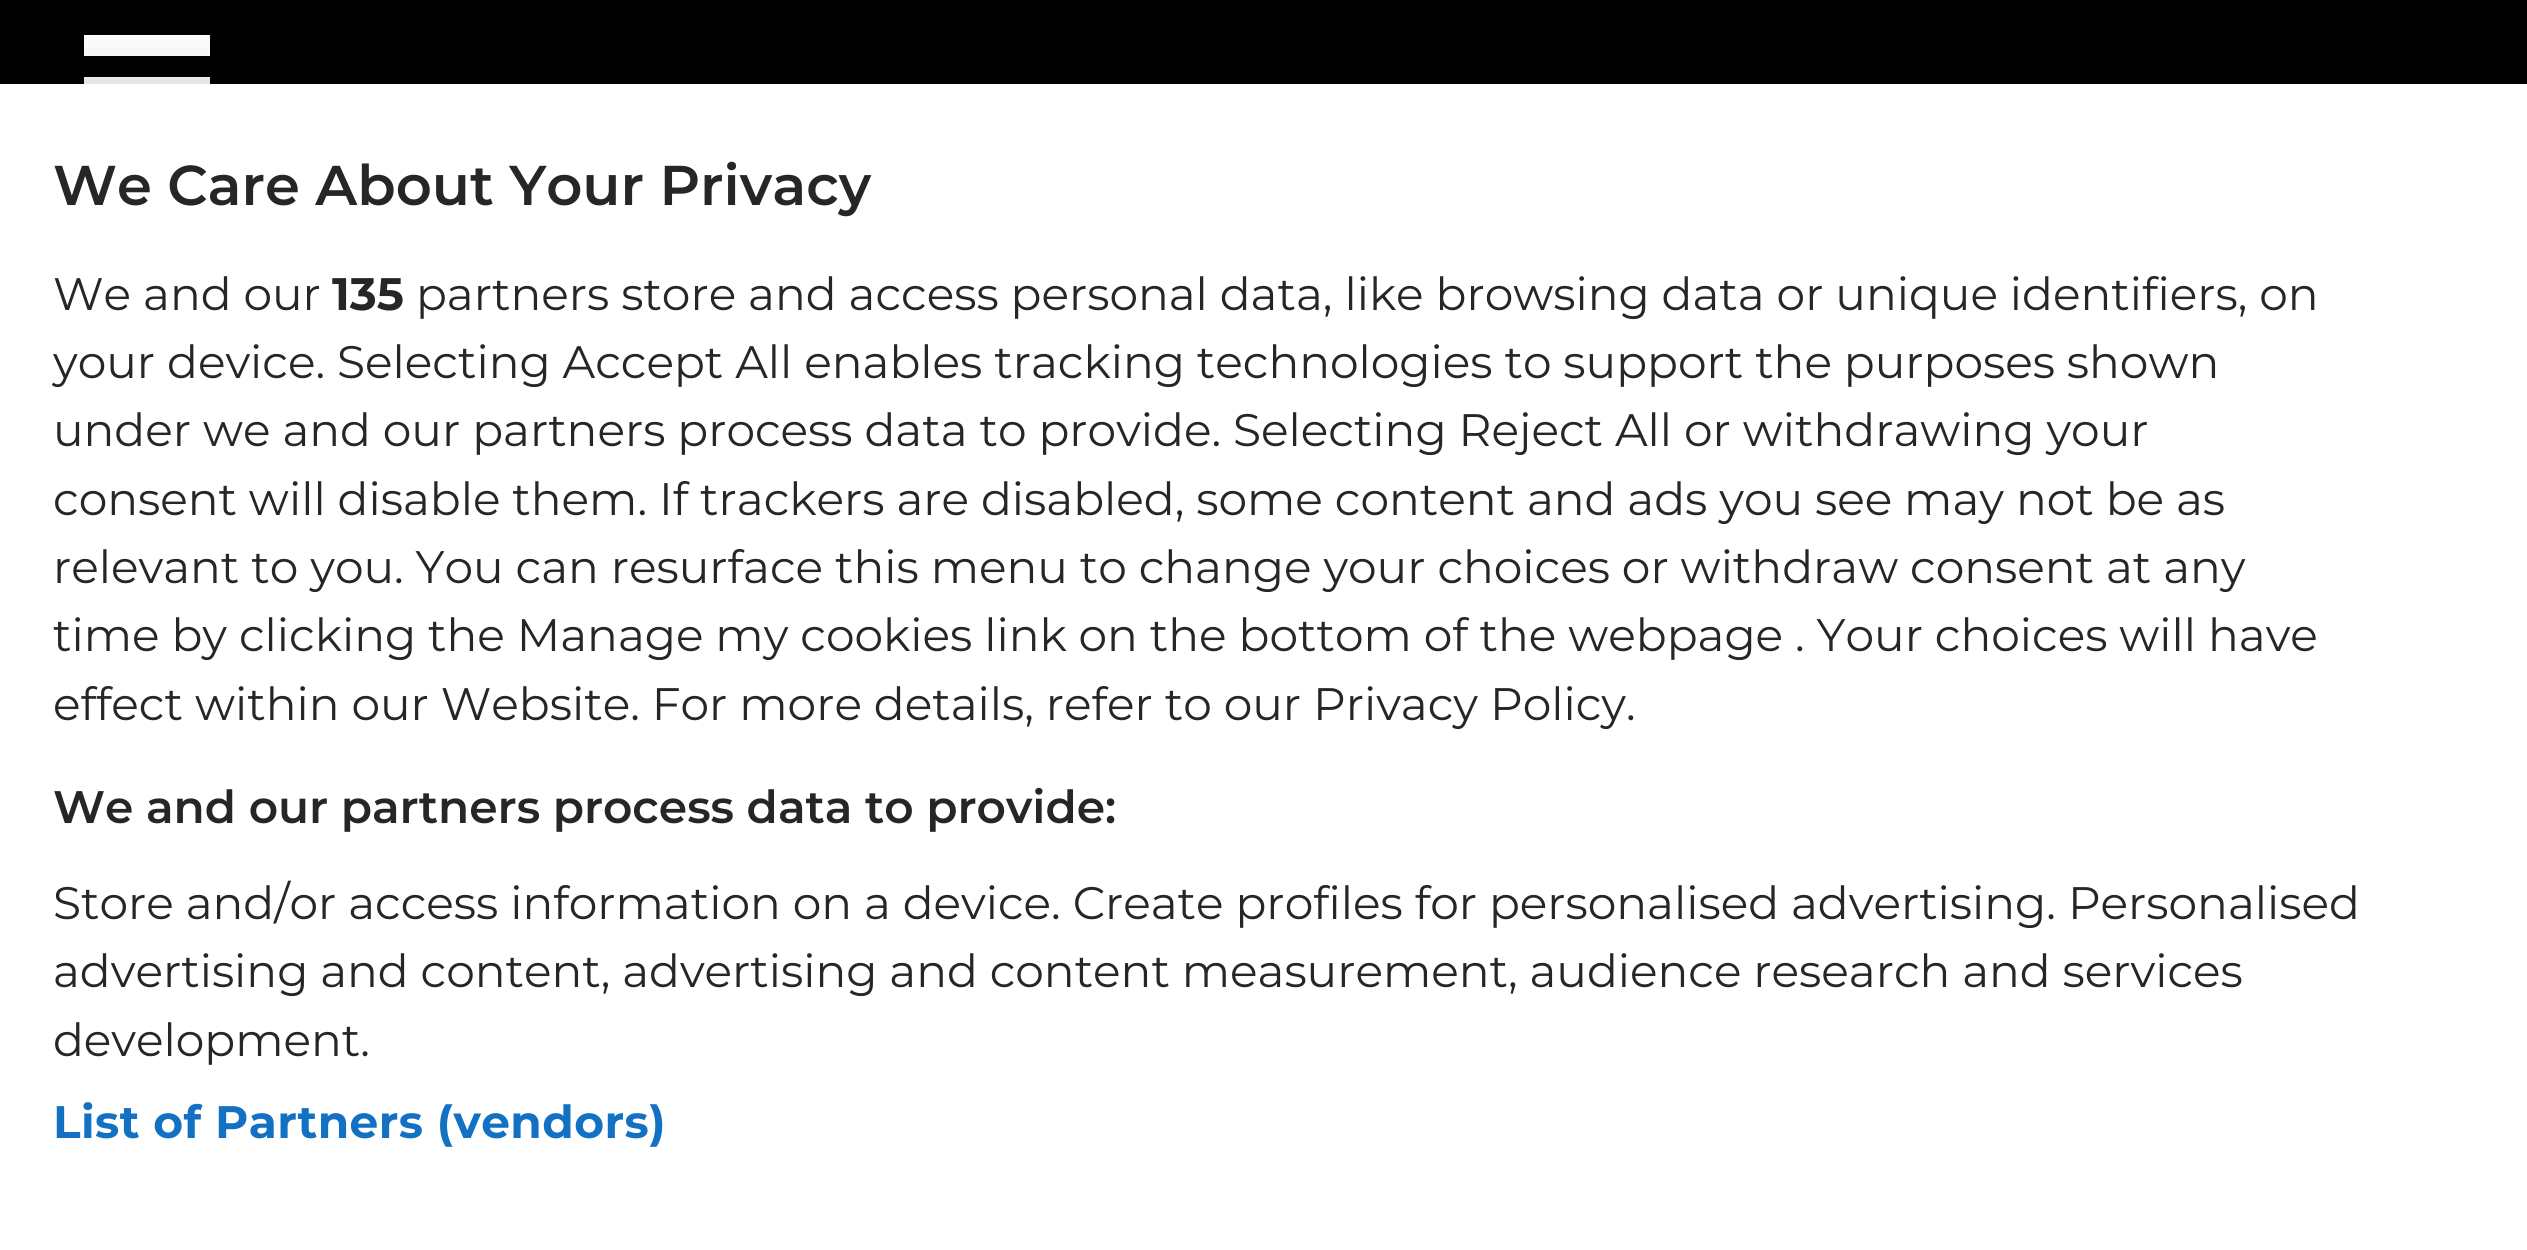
#include <cairo/cairo.h>
#include <math.h>
#include <stddef.h>


static void draw_spaced(cairo_t *cr, double x, double y, const char *s, double letter, double word) {
  cairo_move_to(cr, x, y);
  while (*s) {
    char ch[5] = {0};
    int n = 0;
    do ch[n++] = *s++; while ((*s & 0xC0) == 0x80);
    cairo_show_text(cr, ch);
    cairo_rel_move_to(cr, letter + word * (*ch == ' '), 0);
  }
}

static void rounded_rect(cairo_t *cr, double x, double y, double w, double h, double r) {
  cairo_new_sub_path(cr);
  cairo_arc(cr, x + w - r, y + h - r, r, 0, M_PI / 2);
  cairo_arc(cr, x + r, y + h - r, r, M_PI / 2, M_PI);
  cairo_arc(cr, x + r, y + r, r, M_PI, 1.5 * M_PI);
  cairo_arc(cr, x + w - r, y + r, r, 1.5 * M_PI, 2 * M_PI);
  cairo_close_path(cr);
}

static void draw_shadow(cairo_t *cr, double x, double y, double w, double h, double r, double blur, double alpha) {
  cairo_push_group_with_content(cr, CAIRO_CONTENT_ALPHA);
  cairo_set_operator(cr, CAIRO_OPERATOR_SOURCE);
  for (int i = 15; i >= -15 && fmin(w, h) + blur * i / 3 > 0; i -= 2) {
    double e = blur * i / 6;
    cairo_set_source_rgba(cr, 0, 0, 0, alpha * erfc((i - 1) / 8.5) / 2);
    rounded_rect(cr, x - e, y - e, w + 2 * e, h + 2 * e, fmax(0, fmin(r + e + blur * .6, fmin(w, h) / 2 + e)));
    cairo_fill(cr);
  }
  cairo_pattern_t *soft = cairo_pop_group(cr);
  cairo_mask(cr, soft);
  cairo_pattern_destroy(soft);
}

static void draw(cairo_t *cr) {
  cairo_set_source_rgb(cr, 0, 0, 0);
  cairo_paint(cr);
  cairo_set_source_rgb(cr, 1, 1, 1);
  cairo_rectangle(cr, 84, 77, 126, 7);
  cairo_fill(cr);
  cairo_rectangle(cr, 84, 35, 126, 21);
  cairo_fill(cr);
  cairo_set_source_rgb(cr, 0, 0, 0);
  draw_shadow(cr, 0, 84, 2527, 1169, 0, 31.5, 0.2);
  cairo_set_source_rgb(cr, 1, 1, 1);
  cairo_rectangle(cr, 0, 84, 2527, 1166);
  cairo_fill(cr);
  cairo_select_font_face(cr, "Montserrat SemiBold", CAIRO_FONT_SLANT_NORMAL, CAIRO_FONT_WEIGHT_NORMAL);
  cairo_set_font_size(cr, 56);
  cairo_set_source_rgb(cr, 38 / 255.0, 38 / 255.0, 38 / 255.0);
  cairo_move_to(cr, 53, 205);
  cairo_show_text(cr, "We Care About Your Privacy");
  cairo_select_font_face(cr, "Montserrat", CAIRO_FONT_SLANT_NORMAL, CAIRO_FONT_WEIGHT_NORMAL);
  cairo_set_font_size(cr, 45.53);
  cairo_move_to(cr, 53, 310);
  cairo_show_text(cr, "We and our");
  cairo_select_font_face(cr, "Montserrat", CAIRO_FONT_SLANT_NORMAL, CAIRO_FONT_WEIGHT_BOLD);
  cairo_move_to(cr, 332, 310);
  cairo_show_text(cr, "135");
  cairo_select_font_face(cr, "Montserrat", CAIRO_FONT_SLANT_NORMAL, CAIRO_FONT_WEIGHT_NORMAL);
  cairo_move_to(cr, 416, 310);
  cairo_show_text(cr, "partners store and access personal data, like browsing data or unique identifiers, on");
  cairo_move_to(cr, 53, 378);
  cairo_show_text(cr, "your device. Selecting Accept All enables tracking technologies to support the purposes shown");
  cairo_move_to(cr, 53, 446);
  cairo_show_text(cr, "under we and our partners process data to provide. Selecting Reject All or withdrawing your");
  cairo_move_to(cr, 53, 515);
  cairo_show_text(cr, "consent will disable them. If trackers are disabled, some content and ads you see may not be as");
  cairo_move_to(cr, 53, 583);
  cairo_show_text(cr, "relevant to you. You can resurface this menu to change your choices or withdraw consent at any");
  cairo_move_to(cr, 53, 651);
  cairo_show_text(cr, "time by clicking the Manage my cookies link on the bottom of the webpage . Your choices will have");
  cairo_move_to(cr, 53, 720);
  cairo_show_text(cr, "effect within our Website. For more details, refer to our Privacy Policy.");
  cairo_select_font_face(cr, "Montserrat SemiBold", CAIRO_FONT_SLANT_NORMAL, CAIRO_FONT_WEIGHT_NORMAL);
  cairo_move_to(cr, 53, 823);
  cairo_show_text(cr, "We and our partners process data to provide:");
  cairo_select_font_face(cr, "Montserrat", CAIRO_FONT_SLANT_NORMAL, CAIRO_FONT_WEIGHT_NORMAL);
  cairo_move_to(cr, 53, 919);
  cairo_show_text(cr, "Store and/or access information on a device. Create profiles for personalised advertising. Personalised");
  draw_spaced(cr, 53, 987, "advertising and content, advertising and content measurement, audience research and services", 0, -0.1);
  cairo_move_to(cr, 53, 1056);
  cairo_show_text(cr, "development.");
  cairo_select_font_face(cr, "Montserrat", CAIRO_FONT_SLANT_NORMAL, CAIRO_FONT_WEIGHT_BOLD);
  cairo_set_source_rgb(cr, 19 / 255.0, 113 / 255.0, 195 / 255.0);
  draw_spaced(cr, 53, 1138, "List of Partners (vendors)", 0.45, 0);
}

int main(void) {
  cairo_surface_t *surface = cairo_image_surface_create(CAIRO_FORMAT_RGB24, 2527, 1250);
  cairo_t *cr = cairo_create(surface);
  cairo_font_options_t *options = cairo_font_options_create();
  cairo_font_options_set_hint_metrics(options, CAIRO_HINT_METRICS_OFF);
  cairo_font_options_set_hint_style(options, CAIRO_HINT_STYLE_NONE);
  cairo_set_font_options(cr, options);
  cairo_set_miter_limit(cr, 4);
  draw(cr);
  cairo_surface_write_to_png(surface, "out.png");
  cairo_font_options_destroy(options);
  cairo_destroy(cr);
  cairo_surface_destroy(surface);
  return 0;
}
